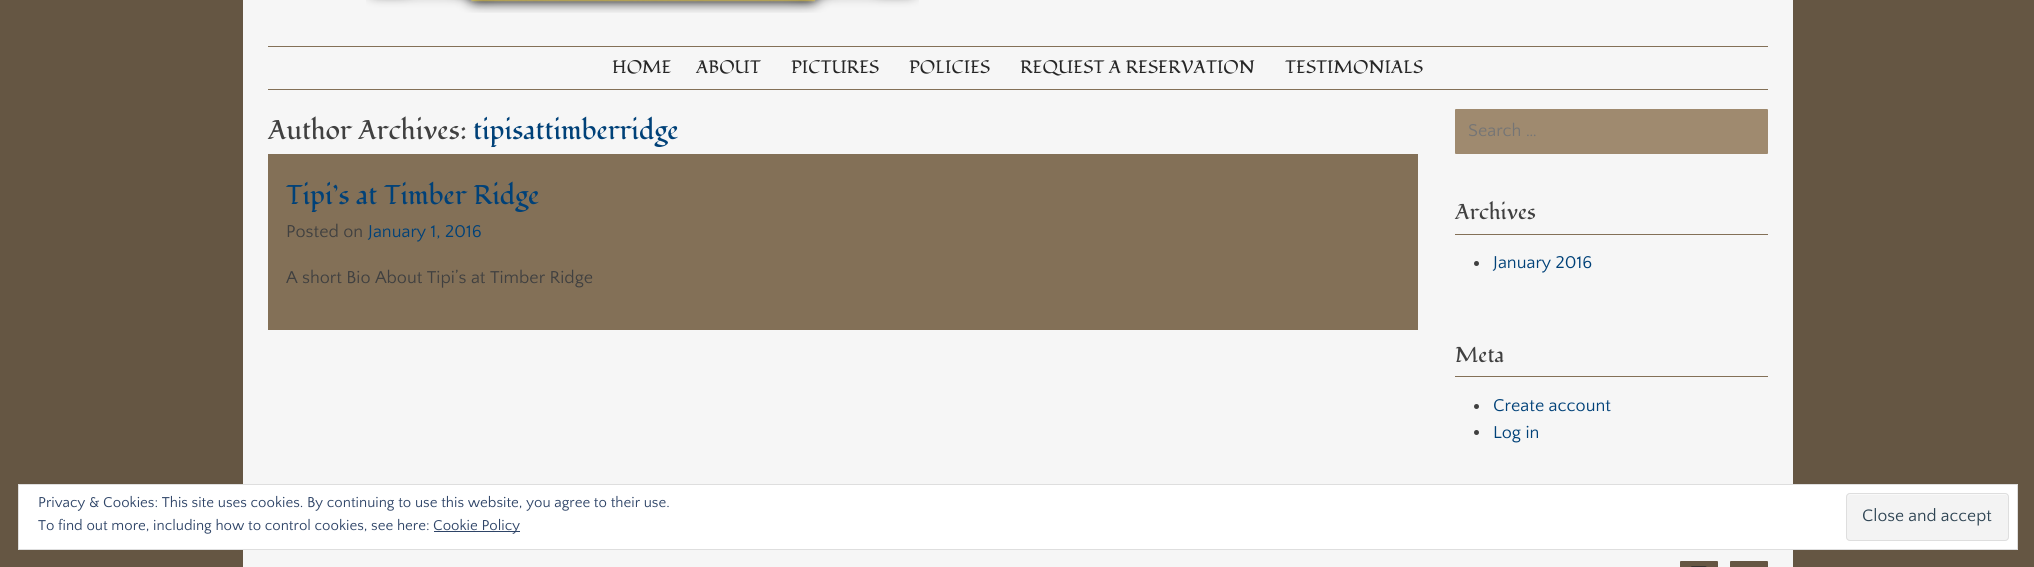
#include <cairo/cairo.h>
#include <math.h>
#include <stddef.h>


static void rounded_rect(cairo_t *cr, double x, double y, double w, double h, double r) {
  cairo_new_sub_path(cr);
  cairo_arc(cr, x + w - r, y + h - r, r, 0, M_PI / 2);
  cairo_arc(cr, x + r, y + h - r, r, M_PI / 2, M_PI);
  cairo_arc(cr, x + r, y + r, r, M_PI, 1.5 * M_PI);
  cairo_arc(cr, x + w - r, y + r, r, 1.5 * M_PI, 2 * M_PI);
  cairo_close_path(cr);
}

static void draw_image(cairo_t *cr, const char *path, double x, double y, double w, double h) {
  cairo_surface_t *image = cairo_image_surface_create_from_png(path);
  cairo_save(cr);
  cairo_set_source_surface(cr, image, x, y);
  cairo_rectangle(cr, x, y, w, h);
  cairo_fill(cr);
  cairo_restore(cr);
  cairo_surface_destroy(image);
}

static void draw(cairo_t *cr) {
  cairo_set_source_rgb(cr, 101 / 255.0, 86 / 255.0, 67 / 255.0);
  cairo_paint(cr);
  cairo_set_source_rgb(cr, 246 / 255.0, 246 / 255.0, 246 / 255.0);
  cairo_rectangle(cr, 243, 0, 1550, 567);
  cairo_fill(cr);
  draw_image(cr, "images/1.png", 366, 0, 553, 13);
  cairo_set_source_rgb(cr, 131 / 255.0, 112 / 255.0, 87 / 255.0);
  cairo_rectangle(cr, 268, 46, 1500, 1);
  cairo_fill(cr);
  cairo_rectangle(cr, 268, 89, 1500, 1);
  cairo_fill(cr);
  cairo_rectangle(cr, 268, 154, 1150, 176);
  cairo_fill(cr);
  cairo_set_source_rgb(cr, 159 / 255.0, 138 / 255.0, 111 / 255.0);
  rounded_rect(cr, 1455, 109, 313, 45, 1);
  cairo_fill(cr);
  cairo_set_source_rgb(cr, 131 / 255.0, 112 / 255.0, 87 / 255.0);
  cairo_rectangle(cr, 1455, 234, 313, 1);
  cairo_fill(cr);
  cairo_set_source_rgb(cr, 64 / 255.0, 64 / 255.0, 64 / 255.0);
  cairo_arc(cr, 1476.5, 263.5, 2.5, 0, 2 * M_PI);
  cairo_fill(cr);
  cairo_set_source_rgb(cr, 131 / 255.0, 112 / 255.0, 87 / 255.0);
  cairo_rectangle(cr, 1455, 376, 313, 1);
  cairo_fill(cr);
  cairo_set_source_rgb(cr, 64 / 255.0, 64 / 255.0, 64 / 255.0);
  cairo_arc(cr, 1476.5, 406.5, 2.5, 0, 2 * M_PI);
  cairo_fill(cr);
  cairo_arc(cr, 1476.5, 432.5, 2.5, 0, 2 * M_PI);
  cairo_fill(cr);
  cairo_set_source_rgb(cr, 101 / 255.0, 86 / 255.0, 67 / 255.0);
  rounded_rect(cr, 1680, 561, 38, 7, 1);
  cairo_fill(cr);
  draw_image(cr, "images/2.png", 1691, 566, 16, 1);
  rounded_rect(cr, 1730, 561, 38, 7, 1);
  cairo_fill(cr);
  cairo_set_source_rgb(cr, 1, 1, 1);
  cairo_rectangle(cr, 18.5, 484.5, 1999, 65);
  cairo_fill_preserve(cr);
  cairo_set_source_rgb(cr, 222 / 255.0, 222 / 255.0, 222 / 255.0);
  cairo_set_line_width(cr, 1);
  cairo_stroke(cr);
  cairo_set_source_rgb(cr, 46 / 255.0, 68 / 255.0, 103 / 255.0);
  cairo_rectangle(cr, 434, 531, 86, 1);
  cairo_fill(cr);
  cairo_set_source_rgb(cr, 243 / 255.0, 243 / 255.0, 243 / 255.0);
  rounded_rect(cr, 1846, 493, 163, 48, 4);
  cairo_fill(cr);
  cairo_set_source_rgb(cr, 249 / 255.0, 249 / 255.0, 249 / 255.0);
  cairo_new_path(cr);
  cairo_move_to(cr, 1850, 495);
  cairo_line_to(cr, 2005, 495);
  cairo_curve_to(cr, 2006, 495, 2008, 496, 2008, 498);
  cairo_curve_to(cr, 2008, 496, 2008, 494, 2006, 494);
  cairo_line_to(cr, 1850, 494);
  cairo_curve_to(cr, 1848, 494, 1848, 496, 1848, 498);
  cairo_curve_to(cr, 1848, 496, 1849, 495, 1850, 495);
  cairo_close_path(cr);
  cairo_fill(cr);
  rounded_rect(cr, 1846.5, 493.5, 162, 47, 3.5);
  cairo_set_source_rgb(cr, 222 / 255.0, 222 / 255.0, 222 / 255.0);
  cairo_stroke(cr);
  cairo_select_font_face(cr, "Fondamento", CAIRO_FONT_SLANT_NORMAL, CAIRO_FONT_WEIGHT_NORMAL);
  cairo_set_font_size(cr, 18);
  cairo_set_source_rgb(cr, 38 / 255.0, 38 / 255.0, 38 / 255.0);
  cairo_move_to(cr, 612, 73);
  cairo_show_text(cr, "HOME");
  cairo_move_to(cr, 696, 73);
  cairo_show_text(cr, "ABOUT");
  cairo_move_to(cr, 791, 73);
  cairo_show_text(cr, "PICTURES");
  cairo_move_to(cr, 909, 73);
  cairo_show_text(cr, "POLICIES");
  cairo_move_to(cr, 1020, 73);
  cairo_show_text(cr, "REQUEST A RESERVATION");
  cairo_move_to(cr, 1285, 73);
  cairo_show_text(cr, "TESTIMONIALS");
  cairo_set_font_size(cr, 27);
  cairo_set_source_rgb(cr, 64 / 255.0, 64 / 255.0, 64 / 255.0);
  cairo_move_to(cr, 268, 139);
  cairo_show_text(cr, "Author Archives:");
  cairo_set_source_rgb(cr, 0, 65 / 255.0, 120 / 255.0);
  cairo_move_to(cr, 473, 139);
  cairo_show_text(cr, "tipisattimberridge");
  cairo_move_to(cr, 286, 204);
  cairo_show_text(cr, "Tipi’s at Timber Ridge");
  cairo_select_font_face(cr, "Quattrocento Sans", CAIRO_FONT_SLANT_NORMAL, CAIRO_FONT_WEIGHT_NORMAL);
  cairo_set_font_size(cr, 18);
  cairo_set_source_rgb(cr, 64 / 255.0, 64 / 255.0, 64 / 255.0);
  cairo_move_to(cr, 286, 237);
  cairo_show_text(cr, "Posted on");
  cairo_set_source_rgb(cr, 0, 65 / 255.0, 120 / 255.0);
  cairo_move_to(cr, 368, 237);
  cairo_show_text(cr, "January 1, 2016");
  cairo_set_source_rgb(cr, 64 / 255.0, 64 / 255.0, 64 / 255.0);
  cairo_move_to(cr, 286, 283);
  cairo_show_text(cr, "A short Bio About Tipi’s at Timber Ridge");
  cairo_set_source_rgb(cr, 117 / 255.0, 117 / 255.0, 117 / 255.0);
  cairo_move_to(cr, 1468, 136);
  cairo_show_text(cr, "Search …");
  cairo_select_font_face(cr, "Fondamento", CAIRO_FONT_SLANT_NORMAL, CAIRO_FONT_WEIGHT_NORMAL);
  cairo_set_font_size(cr, 21.5);
  cairo_set_source_rgb(cr, 64 / 255.0, 64 / 255.0, 64 / 255.0);
  cairo_move_to(cr, 1455, 219);
  cairo_show_text(cr, "Archives");
  cairo_select_font_face(cr, "Quattrocento Sans", CAIRO_FONT_SLANT_NORMAL, CAIRO_FONT_WEIGHT_NORMAL);
  cairo_set_font_size(cr, 18);
  cairo_set_source_rgb(cr, 0, 65 / 255.0, 120 / 255.0);
  cairo_move_to(cr, 1493, 268);
  cairo_show_text(cr, "January 2016");
  cairo_select_font_face(cr, "Fondamento", CAIRO_FONT_SLANT_NORMAL, CAIRO_FONT_WEIGHT_NORMAL);
  cairo_set_font_size(cr, 21.5);
  cairo_set_source_rgb(cr, 64 / 255.0, 64 / 255.0, 64 / 255.0);
  cairo_move_to(cr, 1455, 362);
  cairo_show_text(cr, "Meta");
  cairo_select_font_face(cr, "Quattrocento Sans", CAIRO_FONT_SLANT_NORMAL, CAIRO_FONT_WEIGHT_NORMAL);
  cairo_set_font_size(cr, 18);
  cairo_set_source_rgb(cr, 0, 65 / 255.0, 120 / 255.0);
  cairo_move_to(cr, 1493, 411);
  cairo_show_text(cr, "Create account");
  cairo_move_to(cr, 1493, 438);
  cairo_show_text(cr, "Log in");
  cairo_set_font_size(cr, 15);
  cairo_set_source_rgb(cr, 46 / 255.0, 68 / 255.0, 103 / 255.0);
  cairo_move_to(cr, 38, 507);
  cairo_show_text(cr, "Privacy & Cookies: This site uses cookies. By continuing to use this website, you agree to their use.");
  cairo_move_to(cr, 38, 530);
  cairo_show_text(cr, "To find out more, including how to control cookies, see here:");
  cairo_move_to(cr, 433, 530);
  cairo_show_text(cr, "Cookie Policy");
  cairo_set_font_size(cr, 17.5);
  cairo_set_source_rgb(cr, 46 / 255.0, 68 / 255.0, 83 / 255.0);
  cairo_move_to(cr, 1862, 521);
  cairo_show_text(cr, "Close and accept");
}

int main(void) {
  cairo_surface_t *surface = cairo_image_surface_create(CAIRO_FORMAT_RGB24, 2034, 567);
  cairo_t *cr = cairo_create(surface);
  cairo_font_options_t *options = cairo_font_options_create();
  cairo_font_options_set_hint_metrics(options, CAIRO_HINT_METRICS_OFF);
  cairo_font_options_set_hint_style(options, CAIRO_HINT_STYLE_NONE);
  cairo_set_font_options(cr, options);
  cairo_set_miter_limit(cr, 4);
  draw(cr);
  cairo_surface_write_to_png(surface, "out.png");
  cairo_font_options_destroy(options);
  cairo_destroy(cr);
  cairo_surface_destroy(surface);
  return 0;
}
